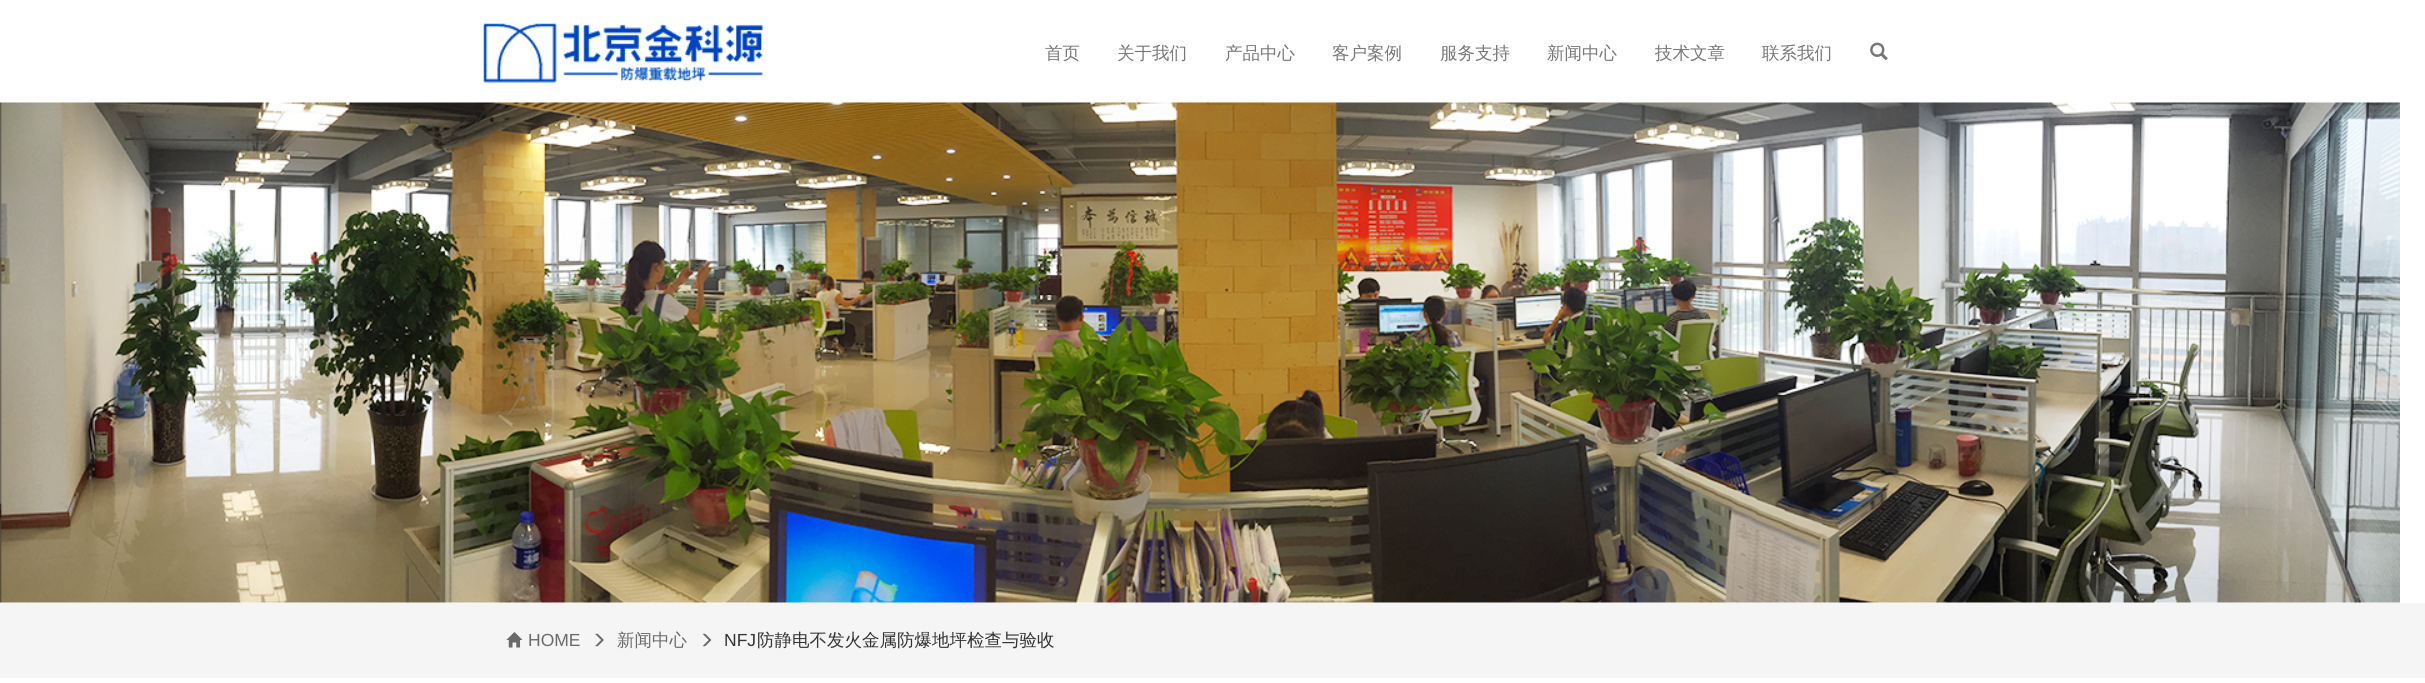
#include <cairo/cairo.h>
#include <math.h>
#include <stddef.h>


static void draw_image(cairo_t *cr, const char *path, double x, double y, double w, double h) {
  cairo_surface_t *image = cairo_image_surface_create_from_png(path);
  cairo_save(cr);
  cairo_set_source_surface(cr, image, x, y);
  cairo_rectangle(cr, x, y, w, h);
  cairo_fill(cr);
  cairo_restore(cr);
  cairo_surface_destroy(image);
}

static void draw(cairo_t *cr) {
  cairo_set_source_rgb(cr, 1, 1, 1);
  cairo_paint(cr);
  draw_image(cr, "images/1.png", 483, 23, 280, 60);
  draw_image(cr, "images/2.png", 1870, 42, 18, 18);
  draw_image(cr, "images/3.png", 0, 102, 2400, 501);
  cairo_set_source_rgb(cr, 245 / 255.0, 245 / 255.0, 245 / 255.0);
  cairo_rectangle(cr, 0, 603, 2425, 75);
  cairo_fill(cr);
  draw_image(cr, "images/4.png", 506, 632, 17, 16);
  draw_image(cr, "images/5.png", 595, 633, 9, 14);
  draw_image(cr, "images/6.png", 702, 633, 10, 14);
  cairo_select_font_face(cr, "WenQuanYi Zen Hei Medium", CAIRO_FONT_SLANT_NORMAL, CAIRO_FONT_WEIGHT_NORMAL);
  cairo_set_font_size(cr, 17.5);
  cairo_set_source_rgb(cr, 119 / 255.0, 119 / 255.0, 119 / 255.0);
  cairo_move_to(cr, 1045, 59);
  cairo_show_text(cr, "首页");
  cairo_move_to(cr, 1117, 59);
  cairo_show_text(cr, "关于我们");
  cairo_move_to(cr, 1225, 59);
  cairo_show_text(cr, "产品中心");
  cairo_move_to(cr, 1332, 59);
  cairo_show_text(cr, "客户案例");
  cairo_move_to(cr, 1440, 59);
  cairo_show_text(cr, "服务支持");
  cairo_move_to(cr, 1547, 59);
  cairo_show_text(cr, "新闻中心");
  cairo_move_to(cr, 1655, 59);
  cairo_show_text(cr, "技术文章");
  cairo_move_to(cr, 1762, 59);
  cairo_show_text(cr, "联系我们");
  cairo_select_font_face(cr, "Liberation Sans", CAIRO_FONT_SLANT_NORMAL, CAIRO_FONT_WEIGHT_NORMAL);
  cairo_set_source_rgb(cr, 109 / 255.0, 105 / 255.0, 105 / 255.0);
  cairo_move_to(cr, 528, 646);
  cairo_show_text(cr, "HOME");
  cairo_select_font_face(cr, "WenQuanYi Zen Hei Medium", CAIRO_FONT_SLANT_NORMAL, CAIRO_FONT_WEIGHT_NORMAL);
  cairo_move_to(cr, 617, 646);
  cairo_show_text(cr, "新闻中心");
  cairo_select_font_face(cr, "Liberation Sans", CAIRO_FONT_SLANT_NORMAL, CAIRO_FONT_WEIGHT_NORMAL);
  cairo_set_source_rgb(cr, 51 / 255.0, 51 / 255.0, 51 / 255.0);
  cairo_move_to(cr, 724, 646);
  cairo_show_text(cr, "NFJ");
  cairo_select_font_face(cr, "WenQuanYi Zen Hei Medium", CAIRO_FONT_SLANT_NORMAL, CAIRO_FONT_WEIGHT_NORMAL);
  cairo_move_to(cr, 757, 646);
  cairo_show_text(cr, "防静电不发火金属防爆地坪检查与验收");
}

int main(void) {
  cairo_surface_t *surface = cairo_image_surface_create(CAIRO_FORMAT_RGB24, 2425, 683);
  cairo_t *cr = cairo_create(surface);
  cairo_font_options_t *options = cairo_font_options_create();
  cairo_font_options_set_hint_metrics(options, CAIRO_HINT_METRICS_OFF);
  cairo_font_options_set_hint_style(options, CAIRO_HINT_STYLE_NONE);
  cairo_set_font_options(cr, options);
  cairo_set_miter_limit(cr, 4);
  draw(cr);
  cairo_surface_write_to_png(surface, "out.png");
  cairo_font_options_destroy(options);
  cairo_destroy(cr);
  cairo_surface_destroy(surface);
  return 0;
}
